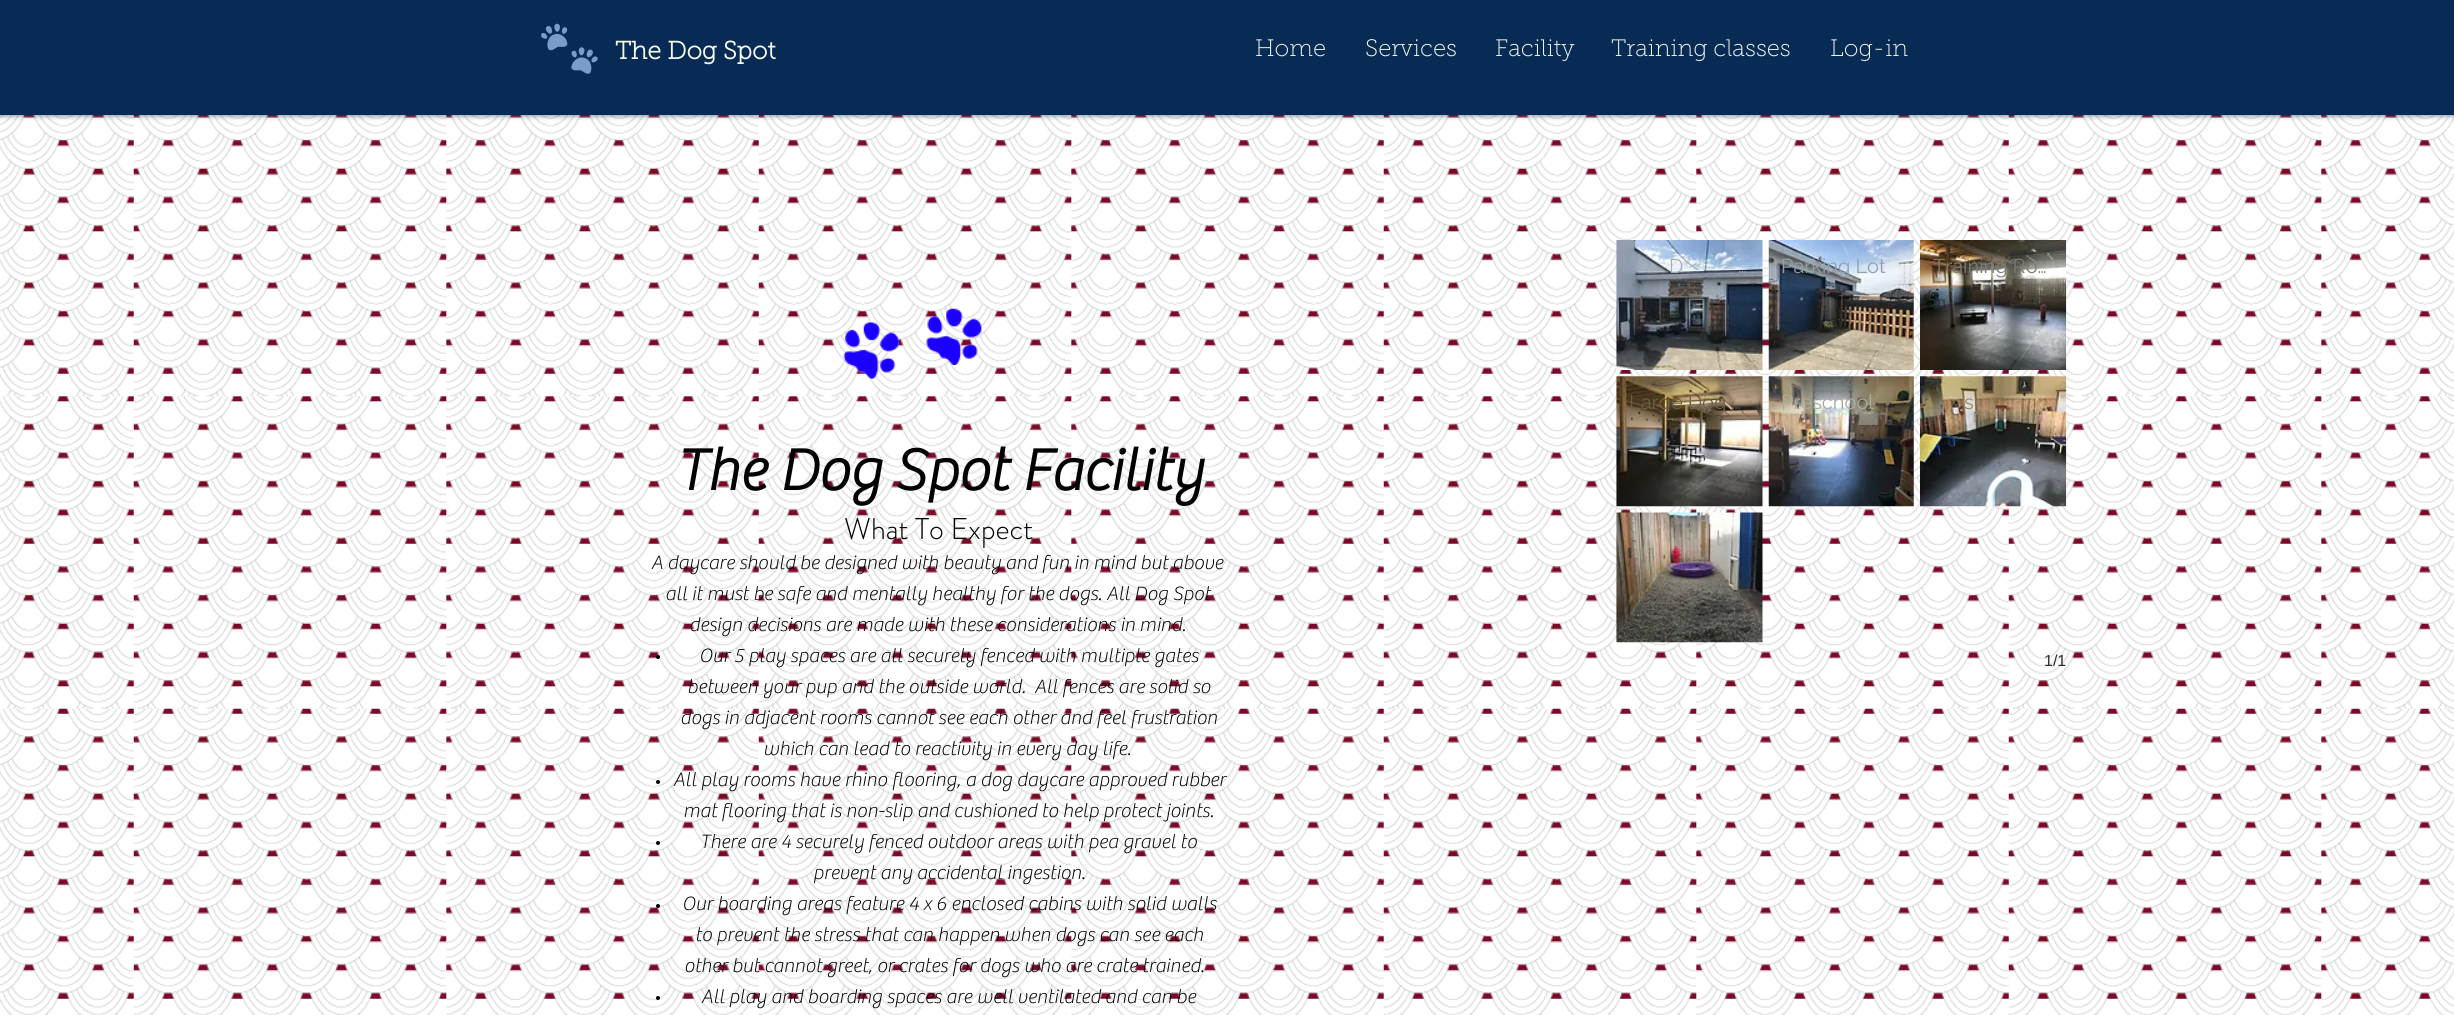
#include <cairo/cairo.h>
#include <math.h>
#include <stddef.h>


static void rounded_rect(cairo_t *cr, double x, double y, double w, double h, double r) {
  cairo_new_sub_path(cr);
  cairo_arc(cr, x + w - r, y + h - r, r, 0, M_PI / 2);
  cairo_arc(cr, x + r, y + h - r, r, M_PI / 2, M_PI);
  cairo_arc(cr, x + r, y + r, r, M_PI, 1.5 * M_PI);
  cairo_arc(cr, x + w - r, y + r, r, 1.5 * M_PI, 2 * M_PI);
  cairo_close_path(cr);
}

static void draw_shadow(cairo_t *cr, double x, double y, double w, double h, double r, double blur, double alpha) {
  cairo_push_group_with_content(cr, CAIRO_CONTENT_ALPHA);
  cairo_set_operator(cr, CAIRO_OPERATOR_SOURCE);
  for (int i = 15; i >= -15 && fmin(w, h) + blur * i / 3 > 0; i -= 2) {
    double e = blur * i / 6;
    cairo_set_source_rgba(cr, 0, 0, 0, alpha * erfc((i - 1) / 8.5) / 2);
    rounded_rect(cr, x - e, y - e, w + 2 * e, h + 2 * e, fmax(0, fmin(r + e + blur * .6, fmin(w, h) / 2 + e)));
    cairo_fill(cr);
  }
  cairo_pattern_t *soft = cairo_pop_group(cr);
  cairo_mask(cr, soft);
  cairo_pattern_destroy(soft);
}

static void draw_image(cairo_t *cr, const char *path, double x, double y, double w, double h) {
  cairo_surface_t *image = cairo_image_surface_create_from_png(path);
  cairo_save(cr);
  cairo_set_source_surface(cr, image, x, y);
  cairo_rectangle(cr, x, y, w, h);
  cairo_fill(cr);
  cairo_restore(cr);
  cairo_surface_destroy(image);
}

static void draw(cairo_t *cr) {
  cairo_set_source_rgb(cr, 123 / 255.0, 8 / 255.0, 40 / 255.0);
  cairo_paint(cr);
  draw_image(cr, "images/2.png", 0, 115, 2454, 900);
  cairo_set_source_rgb(cr, 7 / 255.0, 43 / 255.0, 84 / 255.0);
  draw_shadow(cr, 0, 0, 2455, 115, 0, 3, 0.7);
  cairo_set_source_rgb(cr, 7 / 255.0, 43 / 255.0, 84 / 255.0);
  cairo_rectangle(cr, 0, 0, 2454, 115);
  cairo_fill(cr);
  draw_image(cr, "images/1.png", 541, 23, 57, 51);
  draw_image(cr, "images/3.png", 843, 322, 56, 57);
  draw_image(cr, "images/4.png", 926, 308, 56, 57);
  cairo_set_source_rgb(cr, 1 / 255.0, 2 / 255.0, 2 / 255.0);
  cairo_arc(cr, 658, 657, 2, 0, 2 * M_PI);
  cairo_fill(cr);
  cairo_arc(cr, 658, 782, 2, 0, 2 * M_PI);
  cairo_fill(cr);
  cairo_arc(cr, 658, 843, 2, 0, 2 * M_PI);
  cairo_fill(cr);
  cairo_arc(cr, 658, 906, 2, 0, 2 * M_PI);
  cairo_fill(cr);
  cairo_arc(cr, 658, 998, 2, 0, 2 * M_PI);
  cairo_fill(cr);
  draw_image(cr, "images/5.png", 1616, 240, 147, 130);
  draw_image(cr, "images/6.png", 1768, 240, 146, 130);
  draw_image(cr, "images/7.png", 1920, 240, 147, 130);
  draw_image(cr, "images/8.png", 1616, 376, 147, 131);
  draw_image(cr, "images/9.png", 1768, 376, 146, 131);
  draw_image(cr, "images/10.png", 1920, 376, 147, 131);
  draw_image(cr, "images/11.png", 1616, 512, 147, 131);
  cairo_select_font_face(cr, "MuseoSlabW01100", CAIRO_FONT_SLANT_NORMAL, CAIRO_FONT_WEIGHT_BOLD);
  cairo_set_font_size(cr, 25);
  cairo_set_source_rgb(cr, 245 / 255.0, 251 / 255.0, 239 / 255.0);
  cairo_move_to(cr, 615, 59);
  cairo_show_text(cr, "The Dog Spot");
  cairo_select_font_face(cr, "MuseoSlabW01100 Thin", CAIRO_FONT_SLANT_NORMAL, CAIRO_FONT_WEIGHT_NORMAL);
  cairo_set_font_size(cr, 23.75);
  cairo_move_to(cr, 1255, 56);
  cairo_show_text(cr, "Home");
  cairo_move_to(cr, 1365, 56);
  cairo_show_text(cr, "Services");
  cairo_move_to(cr, 1495, 56);
  cairo_show_text(cr, "Facility");
  cairo_move_to(cr, 1611, 56);
  cairo_show_text(cr, "Training classes");
  cairo_move_to(cr, 1830, 56);
  cairo_show_text(cr, "Log-in");
  cairo_select_font_face(cr, "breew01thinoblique", CAIRO_FONT_SLANT_NORMAL, CAIRO_FONT_WEIGHT_BOLD);
  cairo_set_font_size(cr, 60);
  cairo_set_source_rgb(cr, 1 / 255.0, 2 / 255.0, 2 / 255.0);
  cairo_move_to(cr, 676, 490);
  cairo_show_text(cr, "The Dog Spot Facility");
  cairo_select_font_face(cr, "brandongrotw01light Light", CAIRO_FONT_SLANT_NORMAL, CAIRO_FONT_WEIGHT_NORMAL);
  cairo_set_font_size(cr, 30);
  cairo_move_to(cr, 844, 539);
  cairo_show_text(cr, "What To Expect");
  cairo_select_font_face(cr, "breew01thinoblique Thin", CAIRO_FONT_SLANT_NORMAL, CAIRO_FONT_WEIGHT_NORMAL);
  cairo_set_font_size(cr, 20);
  cairo_move_to(cr, 651, 569);
  cairo_show_text(cr, "A daycare should be designed with beauty and fun in mind but above");
  cairo_move_to(cr, 665, 600);
  cairo_show_text(cr, "all it must be safe and mentally healthy for the dogs. All Dog Spot");
  cairo_move_to(cr, 689, 631);
  cairo_show_text(cr, "design decisions are made with these considerations in mind.");
  cairo_move_to(cr, 699, 662);
  cairo_show_text(cr, "Our 5 play spaces are all securely fenced with multiple gates");
  cairo_move_to(cr, 687, 693);
  cairo_show_text(cr, "between your pup and the outside world.  All fences are solid so");
  cairo_move_to(cr, 680, 724);
  cairo_show_text(cr, "dogs in adjacent rooms cannot see each other and feel frustration");
  cairo_move_to(cr, 763, 755);
  cairo_show_text(cr, "which can lead to reactivity in every day life.");
  cairo_move_to(cr, 673, 786);
  cairo_show_text(cr, "All play rooms have rhino flooring, a dog daycare approved rubber");
  cairo_move_to(cr, 683, 817);
  cairo_show_text(cr, "mat flooring that is non-slip and cushioned to help protect joints.");
  cairo_move_to(cr, 700, 848);
  cairo_show_text(cr, "There are 4 securely fenced outdoor areas with pea gravel to");
  cairo_move_to(cr, 813, 879);
  cairo_show_text(cr, "prevent any accidental ingestion.");
  cairo_move_to(cr, 682, 910);
  cairo_show_text(cr, "Our boarding areas feature 4 x 6 enclosed cabins with solid walls");
  cairo_move_to(cr, 695, 941);
  cairo_show_text(cr, "to prevent the stress that can happen when dogs can see each");
  cairo_move_to(cr, 684, 972);
  cairo_show_text(cr, "other but cannot greet, or crates for dogs who are crate trained.");
  cairo_move_to(cr, 701, 1003);
  cairo_show_text(cr, "All play and boarding spaces are well ventilated and can be");
  cairo_select_font_face(cr, "Raleway", CAIRO_FONT_SLANT_NORMAL, CAIRO_FONT_WEIGHT_NORMAL);
  cairo_set_source_rgb(cr, 162 / 255.0, 174 / 255.0, 188 / 255.0);
  cairo_move_to(cr, 1669, 273);
  cairo_show_text(cr, "D");
  cairo_move_to(cr, 1738, 273);
  cairo_show_text(cr, "…");
  cairo_set_source_rgb(cr, 146 / 255.0, 159 / 255.0, 172 / 255.0);
  cairo_move_to(cr, 1781, 273);
  cairo_show_text(cr, "Parking Lot");
  cairo_set_source_rgb(cr, 128 / 255.0, 122 / 255.0, 111 / 255.0);
  cairo_move_to(cr, 1933, 273);
  cairo_show_text(cr, "Training Ro…");
  cairo_set_source_rgb(cr, 111 / 255.0, 95 / 255.0, 67 / 255.0);
  cairo_move_to(cr, 1629, 409);
  cairo_show_text(cr, "Large Dog …");
  cairo_set_source_rgb(cr, 173 / 255.0, 170 / 255.0, 157 / 255.0);
  cairo_move_to(cr, 1781, 409);
  cairo_show_text(cr, "Preschool");
  cairo_set_source_rgb(cr, 155 / 255.0, 133 / 255.0, 103 / 255.0);
  cairo_move_to(cr, 1964, 409);
  cairo_show_text(cr, "s");
  cairo_set_source_rgb(cr, 180 / 255.0, 166 / 255.0, 153 / 255.0);
  cairo_move_to(cr, 1716, 545);
  cairo_show_text(cr, "l");
  cairo_select_font_face(cr, "Liberation Sans", CAIRO_FONT_SLANT_NORMAL, CAIRO_FONT_WEIGHT_NORMAL);
  cairo_set_font_size(cr, 16);
  cairo_set_source_rgb(cr, 47 / 255.0, 46 / 255.0, 46 / 255.0);
  cairo_move_to(cr, 2044, 666);
  cairo_show_text(cr, "1/1");
}

int main(void) {
  cairo_surface_t *surface = cairo_image_surface_create(CAIRO_FORMAT_RGB24, 2454, 1015);
  cairo_t *cr = cairo_create(surface);
  cairo_font_options_t *options = cairo_font_options_create();
  cairo_font_options_set_hint_metrics(options, CAIRO_HINT_METRICS_OFF);
  cairo_font_options_set_hint_style(options, CAIRO_HINT_STYLE_NONE);
  cairo_set_font_options(cr, options);
  cairo_set_miter_limit(cr, 4);
  draw(cr);
  cairo_surface_write_to_png(surface, "out.png");
  cairo_font_options_destroy(options);
  cairo_destroy(cr);
  cairo_surface_destroy(surface);
  return 0;
}
